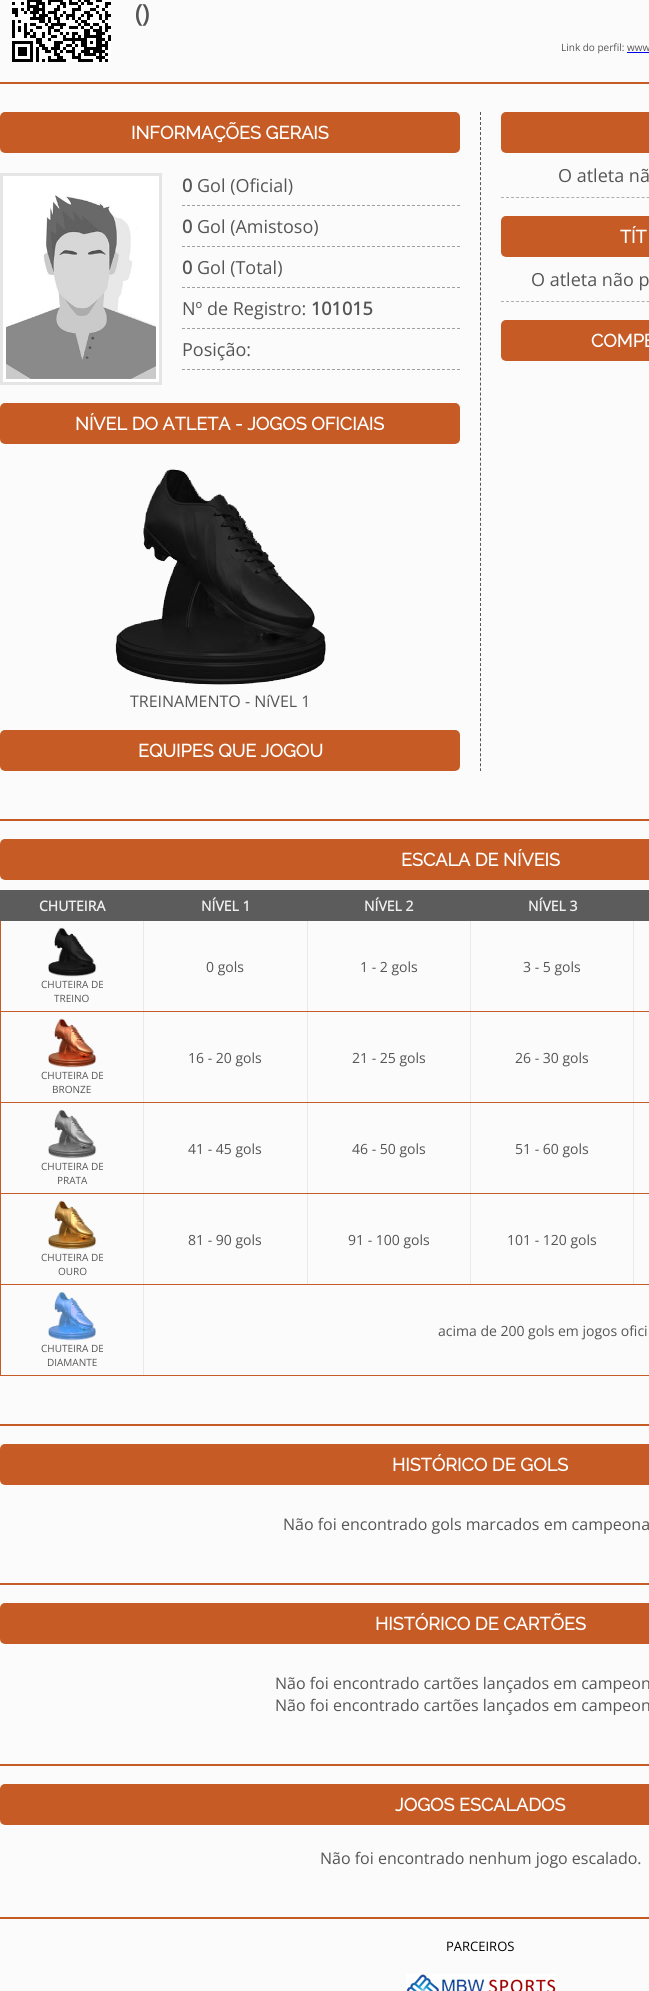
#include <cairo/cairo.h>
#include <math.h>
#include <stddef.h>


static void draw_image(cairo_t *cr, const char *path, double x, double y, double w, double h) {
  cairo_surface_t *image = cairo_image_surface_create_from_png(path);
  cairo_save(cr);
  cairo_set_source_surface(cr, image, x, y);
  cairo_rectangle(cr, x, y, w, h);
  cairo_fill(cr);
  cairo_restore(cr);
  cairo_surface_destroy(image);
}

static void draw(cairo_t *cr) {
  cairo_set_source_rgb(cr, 251 / 255.0, 251 / 255.0, 251 / 255.0);
  cairo_paint(cr);
  draw_image(cr, "images/1.png", 12, 0, 99, 62);
  cairo_set_source_rgb(cr, 198 / 255.0, 91 / 255.0, 37 / 255.0);
  cairo_rectangle(cr, 0, 82, 649, 2);
  cairo_fill(cr);
  cairo_new_path(cr);
  cairo_move_to(cr, 480.5, 112);
  cairo_line_to(cr, 480.5, 771);
  cairo_set_source_rgb(cr, 85 / 255.0, 85 / 255.0, 85 / 255.0);
  cairo_set_line_width(cr, 1);
  cairo_set_dash(cr, (double[]){3, 2.01}, 2, 0);
  cairo_stroke(cr);
  draw_image(cr, "images/2.png", 0, 112, 460, 41);
  cairo_set_source_rgb(cr, 1, 1, 1);
  cairo_rectangle(cr, 1.5, 174.5, 159, 209);
  cairo_fill_preserve(cr);
  cairo_set_source_rgb(cr, 229 / 255.0, 229 / 255.0, 229 / 255.0);
  cairo_set_line_width(cr, 3);
  cairo_set_dash(cr, NULL, 0, 0);
  cairo_stroke(cr);
  draw_image(cr, "images/3.png", 6, 195, 150, 184);
  cairo_new_path(cr);
  cairo_move_to(cr, 182, 205.5);
  cairo_line_to(cr, 460, 205.5);
  cairo_set_source_rgb(cr, 160 / 255.0, 160 / 255.0, 160 / 255.0);
  cairo_set_line_width(cr, 1);
  cairo_set_dash(cr, (double[]){3, 2}, 2, 0);
  cairo_stroke(cr);
  cairo_new_path(cr);
  cairo_move_to(cr, 182, 246.5);
  cairo_line_to(cr, 460, 246.5);
  cairo_stroke(cr);
  cairo_new_path(cr);
  cairo_move_to(cr, 182, 287.5);
  cairo_line_to(cr, 460, 287.5);
  cairo_stroke(cr);
  cairo_new_path(cr);
  cairo_move_to(cr, 182, 328.5);
  cairo_line_to(cr, 460, 328.5);
  cairo_stroke(cr);
  cairo_new_path(cr);
  cairo_move_to(cr, 182, 369.5);
  cairo_line_to(cr, 460, 369.5);
  cairo_stroke(cr);
  draw_image(cr, "images/2.png", 0, 403, 460, 41);
  draw_image(cr, "images/4.png", 115, 469, 211, 216);
  draw_image(cr, "images/2.png", 0, 730, 460, 41);
  draw_image(cr, "images/5.png", 501, 112, 148, 41);
  cairo_new_path(cr);
  cairo_move_to(cr, 501, 197.5);
  cairo_line_to(cr, 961, 197.5);
  cairo_set_source_rgb(cr, 174 / 255.0, 174 / 255.0, 174 / 255.0);
  cairo_set_dash(cr, (double[]){3, 2.02}, 2, 0);
  cairo_stroke(cr);
  draw_image(cr, "images/5.png", 501, 216, 148, 41);
  cairo_new_path(cr);
  cairo_move_to(cr, 501, 301.5);
  cairo_line_to(cr, 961, 301.5);
  cairo_stroke(cr);
  draw_image(cr, "images/5.png", 501, 320, 148, 41);
  cairo_set_source_rgb(cr, 198 / 255.0, 91 / 255.0, 37 / 255.0);
  cairo_rectangle(cr, 0, 819, 649, 2);
  cairo_fill(cr);
  draw_image(cr, "images/6.png", 0, 839, 649, 41);
  cairo_set_source_rgb(cr, 92 / 255.0, 92 / 255.0, 92 / 255.0);
  cairo_rectangle(cr, 0, 890, 649, 31);
  cairo_fill(cr);
  cairo_set_source_rgb(cr, 233 / 255.0, 233 / 255.0, 233 / 255.0);
  cairo_rectangle(cr, 307, 921, 1, 364);
  cairo_fill(cr);
  cairo_set_source_rgb(cr, 198 / 255.0, 91 / 255.0, 37 / 255.0);
  cairo_rectangle(cr, 144, 1011, 164, 1);
  cairo_fill(cr);
  cairo_set_source_rgb(cr, 233 / 255.0, 233 / 255.0, 233 / 255.0);
  cairo_rectangle(cr, 470, 921, 1, 364);
  cairo_fill(cr);
  cairo_set_source_rgb(cr, 198 / 255.0, 91 / 255.0, 37 / 255.0);
  cairo_rectangle(cr, 308, 1011, 163, 1);
  cairo_fill(cr);
  cairo_set_source_rgb(cr, 233 / 255.0, 233 / 255.0, 233 / 255.0);
  cairo_rectangle(cr, 633, 921, 1, 364);
  cairo_fill(cr);
  cairo_set_source_rgb(cr, 198 / 255.0, 91 / 255.0, 37 / 255.0);
  cairo_rectangle(cr, 471, 1011, 178, 1);
  cairo_fill(cr);
  cairo_set_source_rgb(cr, 233 / 255.0, 233 / 255.0, 233 / 255.0);
  cairo_rectangle(cr, 143, 921, 1, 455);
  cairo_fill(cr);
  cairo_set_source_rgb(cr, 198 / 255.0, 91 / 255.0, 37 / 255.0);
  cairo_rectangle(cr, 0, 1011, 144, 1);
  cairo_fill(cr);
  cairo_rectangle(cr, 0, 921, 1, 91);
  cairo_fill(cr);
  draw_image(cr, "images/7.png", 48, 927, 49, 50);
  cairo_rectangle(cr, 0, 1102, 649, 1);
  cairo_fill(cr);
  cairo_rectangle(cr, 0, 1012, 1, 91);
  cairo_fill(cr);
  draw_image(cr, "images/8.png", 48, 1018, 49, 50);
  cairo_rectangle(cr, 0, 1193, 649, 1);
  cairo_fill(cr);
  cairo_rectangle(cr, 0, 1103, 1, 91);
  cairo_fill(cr);
  draw_image(cr, "images/9.png", 48, 1109, 49, 50);
  cairo_rectangle(cr, 0, 1284, 649, 1);
  cairo_fill(cr);
  cairo_rectangle(cr, 0, 1194, 1, 91);
  cairo_fill(cr);
  draw_image(cr, "images/10.png", 48, 1200, 49, 50);
  cairo_rectangle(cr, 0, 1375, 649, 1);
  cairo_fill(cr);
  cairo_rectangle(cr, 0, 1285, 1, 91);
  cairo_fill(cr);
  draw_image(cr, "images/11.png", 48, 1291, 48, 50);
  cairo_rectangle(cr, 0, 1424, 649, 2);
  cairo_fill(cr);
  draw_image(cr, "images/6.png", 0, 1444, 649, 41);
  cairo_rectangle(cr, 0, 1583, 649, 2);
  cairo_fill(cr);
  draw_image(cr, "images/6.png", 0, 1603, 649, 41);
  cairo_rectangle(cr, 0, 1764, 649, 2);
  cairo_fill(cr);
  draw_image(cr, "images/6.png", 0, 1784, 649, 41);
  cairo_rectangle(cr, 0, 1917, 649, 2);
  cairo_fill(cr);
  draw_image(cr, "images/12.png", 406, 1974, 150, 17);
  cairo_select_font_face(cr, "Open Sans", CAIRO_FONT_SLANT_NORMAL, CAIRO_FONT_WEIGHT_BOLD);
  cairo_set_font_size(cr, 24);
  cairo_set_source_rgb(cr, 85 / 255.0, 85 / 255.0, 85 / 255.0);
  cairo_move_to(cr, 135, 22);
  cairo_show_text(cr, "()");
  cairo_select_font_face(cr, "Open Sans", CAIRO_FONT_SLANT_NORMAL, CAIRO_FONT_WEIGHT_NORMAL);
  cairo_set_font_size(cr, 10);
  cairo_move_to(cr, 561, 51);
  cairo_show_text(cr, "Link do perfil: www");
  cairo_set_source_rgb(cr, 0, 0, 238 / 255.0);
  cairo_rectangle(cr, 627, 52, 22, 1);
  cairo_fill(cr);
  cairo_select_font_face(cr, "Raleway", CAIRO_FONT_SLANT_NORMAL, CAIRO_FONT_WEIGHT_BOLD);
  cairo_set_font_size(cr, 18);
  cairo_set_source_rgb(cr, 1, 1, 1);
  cairo_move_to(cr, 131, 139);
  cairo_show_text(cr, "INFORMAÇÕES GERAIS");
  cairo_select_font_face(cr, "Open Sans", CAIRO_FONT_SLANT_NORMAL, CAIRO_FONT_WEIGHT_BOLD);
  cairo_set_source_rgb(cr, 85 / 255.0, 85 / 255.0, 85 / 255.0);
  cairo_move_to(cr, 182, 192);
  cairo_show_text(cr, "0");
  cairo_select_font_face(cr, "Open Sans", CAIRO_FONT_SLANT_NORMAL, CAIRO_FONT_WEIGHT_NORMAL);
  cairo_move_to(cr, 197, 192);
  cairo_show_text(cr, "Gol (Oficial)");
  cairo_select_font_face(cr, "Open Sans", CAIRO_FONT_SLANT_NORMAL, CAIRO_FONT_WEIGHT_BOLD);
  cairo_move_to(cr, 182, 233);
  cairo_show_text(cr, "0");
  cairo_select_font_face(cr, "Open Sans", CAIRO_FONT_SLANT_NORMAL, CAIRO_FONT_WEIGHT_NORMAL);
  cairo_move_to(cr, 197, 233);
  cairo_show_text(cr, "Gol (Amistoso)");
  cairo_select_font_face(cr, "Open Sans", CAIRO_FONT_SLANT_NORMAL, CAIRO_FONT_WEIGHT_BOLD);
  cairo_move_to(cr, 182, 274);
  cairo_show_text(cr, "0");
  cairo_select_font_face(cr, "Open Sans", CAIRO_FONT_SLANT_NORMAL, CAIRO_FONT_WEIGHT_NORMAL);
  cairo_move_to(cr, 197, 274);
  cairo_show_text(cr, "Gol (Total)");
  cairo_move_to(cr, 182, 315);
  cairo_show_text(cr, "Nº de Registro:");
  cairo_select_font_face(cr, "Open Sans", CAIRO_FONT_SLANT_NORMAL, CAIRO_FONT_WEIGHT_BOLD);
  cairo_move_to(cr, 311, 315);
  cairo_show_text(cr, "101015");
  cairo_select_font_face(cr, "Open Sans", CAIRO_FONT_SLANT_NORMAL, CAIRO_FONT_WEIGHT_NORMAL);
  cairo_move_to(cr, 182, 356);
  cairo_show_text(cr, "Posição:");
  cairo_select_font_face(cr, "Raleway", CAIRO_FONT_SLANT_NORMAL, CAIRO_FONT_WEIGHT_BOLD);
  cairo_set_source_rgb(cr, 1, 1, 1);
  cairo_move_to(cr, 75, 430);
  cairo_show_text(cr, "NÍVEL DO ATLETA - JOGOS OFICIAIS");
  cairo_select_font_face(cr, "Open Sans", CAIRO_FONT_SLANT_NORMAL, CAIRO_FONT_WEIGHT_NORMAL);
  cairo_set_font_size(cr, 16);
  cairo_set_source_rgb(cr, 85 / 255.0, 85 / 255.0, 85 / 255.0);
  cairo_move_to(cr, 130, 707);
  cairo_show_text(cr, "TREINAMENTO - NíVEL 1");
  cairo_select_font_face(cr, "Raleway", CAIRO_FONT_SLANT_NORMAL, CAIRO_FONT_WEIGHT_BOLD);
  cairo_set_font_size(cr, 18);
  cairo_set_source_rgb(cr, 1, 1, 1);
  cairo_move_to(cr, 138, 757);
  cairo_show_text(cr, "EQUIPES QUE JOGOU");
  cairo_select_font_face(cr, "Open Sans", CAIRO_FONT_SLANT_NORMAL, CAIRO_FONT_WEIGHT_NORMAL);
  cairo_set_source_rgb(cr, 85 / 255.0, 85 / 255.0, 85 / 255.0);
  cairo_move_to(cr, 558, 182);
  cairo_show_text(cr, "O atleta nã");
  cairo_select_font_face(cr, "Raleway", CAIRO_FONT_SLANT_NORMAL, CAIRO_FONT_WEIGHT_BOLD);
  cairo_set_source_rgb(cr, 1, 1, 1);
  cairo_move_to(cr, 620, 243);
  cairo_show_text(cr, "TÍT");
  cairo_select_font_face(cr, "Open Sans", CAIRO_FONT_SLANT_NORMAL, CAIRO_FONT_WEIGHT_NORMAL);
  cairo_set_source_rgb(cr, 85 / 255.0, 85 / 255.0, 85 / 255.0);
  cairo_move_to(cr, 531, 286);
  cairo_show_text(cr, "O atleta não p");
  cairo_select_font_face(cr, "Raleway", CAIRO_FONT_SLANT_NORMAL, CAIRO_FONT_WEIGHT_BOLD);
  cairo_set_source_rgb(cr, 1, 1, 1);
  cairo_move_to(cr, 591, 347);
  cairo_show_text(cr, "COMPE");
  cairo_move_to(cr, 401, 866);
  cairo_show_text(cr, "ESCALA DE NÍVEIS");
  cairo_select_font_face(cr, "Open Sans", CAIRO_FONT_SLANT_NORMAL, CAIRO_FONT_WEIGHT_BOLD);
  cairo_set_font_size(cr, 14);
  cairo_set_source_rgb(cr, 239 / 255.0, 239 / 255.0, 239 / 255.0);
  cairo_move_to(cr, 39, 911);
  cairo_show_text(cr, "CHUTEIRA");
  cairo_move_to(cr, 201, 911);
  cairo_show_text(cr, "NÍVEL 1");
  cairo_move_to(cr, 364, 911);
  cairo_show_text(cr, "NÍVEL 2");
  cairo_move_to(cr, 528, 911);
  cairo_show_text(cr, "NÍVEL 3");
  cairo_select_font_face(cr, "Open Sans", CAIRO_FONT_SLANT_NORMAL, CAIRO_FONT_WEIGHT_NORMAL);
  cairo_set_source_rgb(cr, 85 / 255.0, 85 / 255.0, 85 / 255.0);
  cairo_move_to(cr, 206, 972);
  cairo_show_text(cr, "0 gols");
  cairo_move_to(cr, 360, 972);
  cairo_show_text(cr, "1 - 2 gols");
  cairo_move_to(cr, 523, 972);
  cairo_show_text(cr, "3 - 5 gols");
  cairo_set_font_size(cr, 10);
  cairo_move_to(cr, 41, 988);
  cairo_show_text(cr, "CHUTEIRA DE");
  cairo_move_to(cr, 54, 1002);
  cairo_show_text(cr, "TREINO");
  cairo_set_font_size(cr, 14);
  cairo_move_to(cr, 188, 1063);
  cairo_show_text(cr, "16 - 20 gols");
  cairo_move_to(cr, 352, 1063);
  cairo_show_text(cr, "21 - 25 gols");
  cairo_move_to(cr, 515, 1063);
  cairo_show_text(cr, "26 - 30 gols");
  cairo_set_font_size(cr, 10);
  cairo_move_to(cr, 41, 1079);
  cairo_show_text(cr, "CHUTEIRA DE");
  cairo_move_to(cr, 52, 1093);
  cairo_show_text(cr, "BRONZE");
  cairo_set_font_size(cr, 14);
  cairo_move_to(cr, 188, 1154);
  cairo_show_text(cr, "41 - 45 gols");
  cairo_move_to(cr, 352, 1154);
  cairo_show_text(cr, "46 - 50 gols");
  cairo_move_to(cr, 515, 1154);
  cairo_show_text(cr, "51 - 60 gols");
  cairo_set_font_size(cr, 10);
  cairo_move_to(cr, 41, 1170);
  cairo_show_text(cr, "CHUTEIRA DE");
  cairo_move_to(cr, 57, 1184);
  cairo_show_text(cr, "PRATA");
  cairo_set_font_size(cr, 14);
  cairo_move_to(cr, 188, 1245);
  cairo_show_text(cr, "81 - 90 gols");
  cairo_move_to(cr, 348, 1245);
  cairo_show_text(cr, "91 - 100 gols");
  cairo_move_to(cr, 507, 1245);
  cairo_show_text(cr, "101 - 120 gols");
  cairo_set_font_size(cr, 10);
  cairo_move_to(cr, 41, 1261);
  cairo_show_text(cr, "CHUTEIRA DE");
  cairo_move_to(cr, 58, 1275);
  cairo_show_text(cr, "OURO");
  cairo_set_font_size(cr, 14);
  cairo_move_to(cr, 438, 1336);
  cairo_show_text(cr, "acima de 200 gols em jogos ofici");
  cairo_set_font_size(cr, 10);
  cairo_move_to(cr, 41, 1352);
  cairo_show_text(cr, "CHUTEIRA DE");
  cairo_move_to(cr, 47, 1366);
  cairo_show_text(cr, "DIAMANTE");
  cairo_select_font_face(cr, "Raleway", CAIRO_FONT_SLANT_NORMAL, CAIRO_FONT_WEIGHT_BOLD);
  cairo_set_font_size(cr, 18);
  cairo_set_source_rgb(cr, 1, 1, 1);
  cairo_move_to(cr, 392, 1471);
  cairo_show_text(cr, "HISTÓRICO DE GOLS");
  cairo_select_font_face(cr, "Open Sans", CAIRO_FONT_SLANT_NORMAL, CAIRO_FONT_WEIGHT_NORMAL);
  cairo_set_font_size(cr, 16);
  cairo_set_source_rgb(cr, 85 / 255.0, 85 / 255.0, 85 / 255.0);
  cairo_move_to(cr, 283, 1530);
  cairo_show_text(cr, "Não foi encontrado gols marcados em campeona");
  cairo_select_font_face(cr, "Raleway", CAIRO_FONT_SLANT_NORMAL, CAIRO_FONT_WEIGHT_BOLD);
  cairo_set_font_size(cr, 18);
  cairo_set_source_rgb(cr, 1, 1, 1);
  cairo_move_to(cr, 375, 1630);
  cairo_show_text(cr, "HISTÓRICO DE CARTÕES");
  cairo_select_font_face(cr, "Open Sans", CAIRO_FONT_SLANT_NORMAL, CAIRO_FONT_WEIGHT_NORMAL);
  cairo_set_font_size(cr, 16);
  cairo_set_source_rgb(cr, 85 / 255.0, 85 / 255.0, 85 / 255.0);
  cairo_move_to(cr, 275, 1689);
  cairo_show_text(cr, "Não foi encontrado cartões lançados em campeon");
  cairo_move_to(cr, 275, 1711);
  cairo_show_text(cr, "Não foi encontrado cartões lançados em campeon");
  cairo_select_font_face(cr, "Raleway", CAIRO_FONT_SLANT_NORMAL, CAIRO_FONT_WEIGHT_BOLD);
  cairo_set_font_size(cr, 18);
  cairo_set_source_rgb(cr, 1, 1, 1);
  cairo_move_to(cr, 395, 1811);
  cairo_show_text(cr, "JOGOS ESCALADOS");
  cairo_select_font_face(cr, "Open Sans", CAIRO_FONT_SLANT_NORMAL, CAIRO_FONT_WEIGHT_NORMAL);
  cairo_set_font_size(cr, 16);
  cairo_set_source_rgb(cr, 85 / 255.0, 85 / 255.0, 85 / 255.0);
  cairo_move_to(cr, 320, 1864);
  cairo_show_text(cr, "Não foi encontrado nenhum jogo escalado.");
  cairo_set_font_size(cr, 13);
  cairo_set_source_rgb(cr, 0, 0, 0);
  cairo_move_to(cr, 446, 1951);
  cairo_show_text(cr, "PARCEIROS");
}

int main(void) {
  cairo_surface_t *surface = cairo_image_surface_create(CAIRO_FORMAT_RGB24, 649, 1991);
  cairo_t *cr = cairo_create(surface);
  cairo_font_options_t *options = cairo_font_options_create();
  cairo_font_options_set_hint_metrics(options, CAIRO_HINT_METRICS_OFF);
  cairo_font_options_set_hint_style(options, CAIRO_HINT_STYLE_NONE);
  cairo_set_font_options(cr, options);
  cairo_set_miter_limit(cr, 4);
  draw(cr);
  cairo_surface_write_to_png(surface, "out.png");
  cairo_font_options_destroy(options);
  cairo_destroy(cr);
  cairo_surface_destroy(surface);
  return 0;
}
